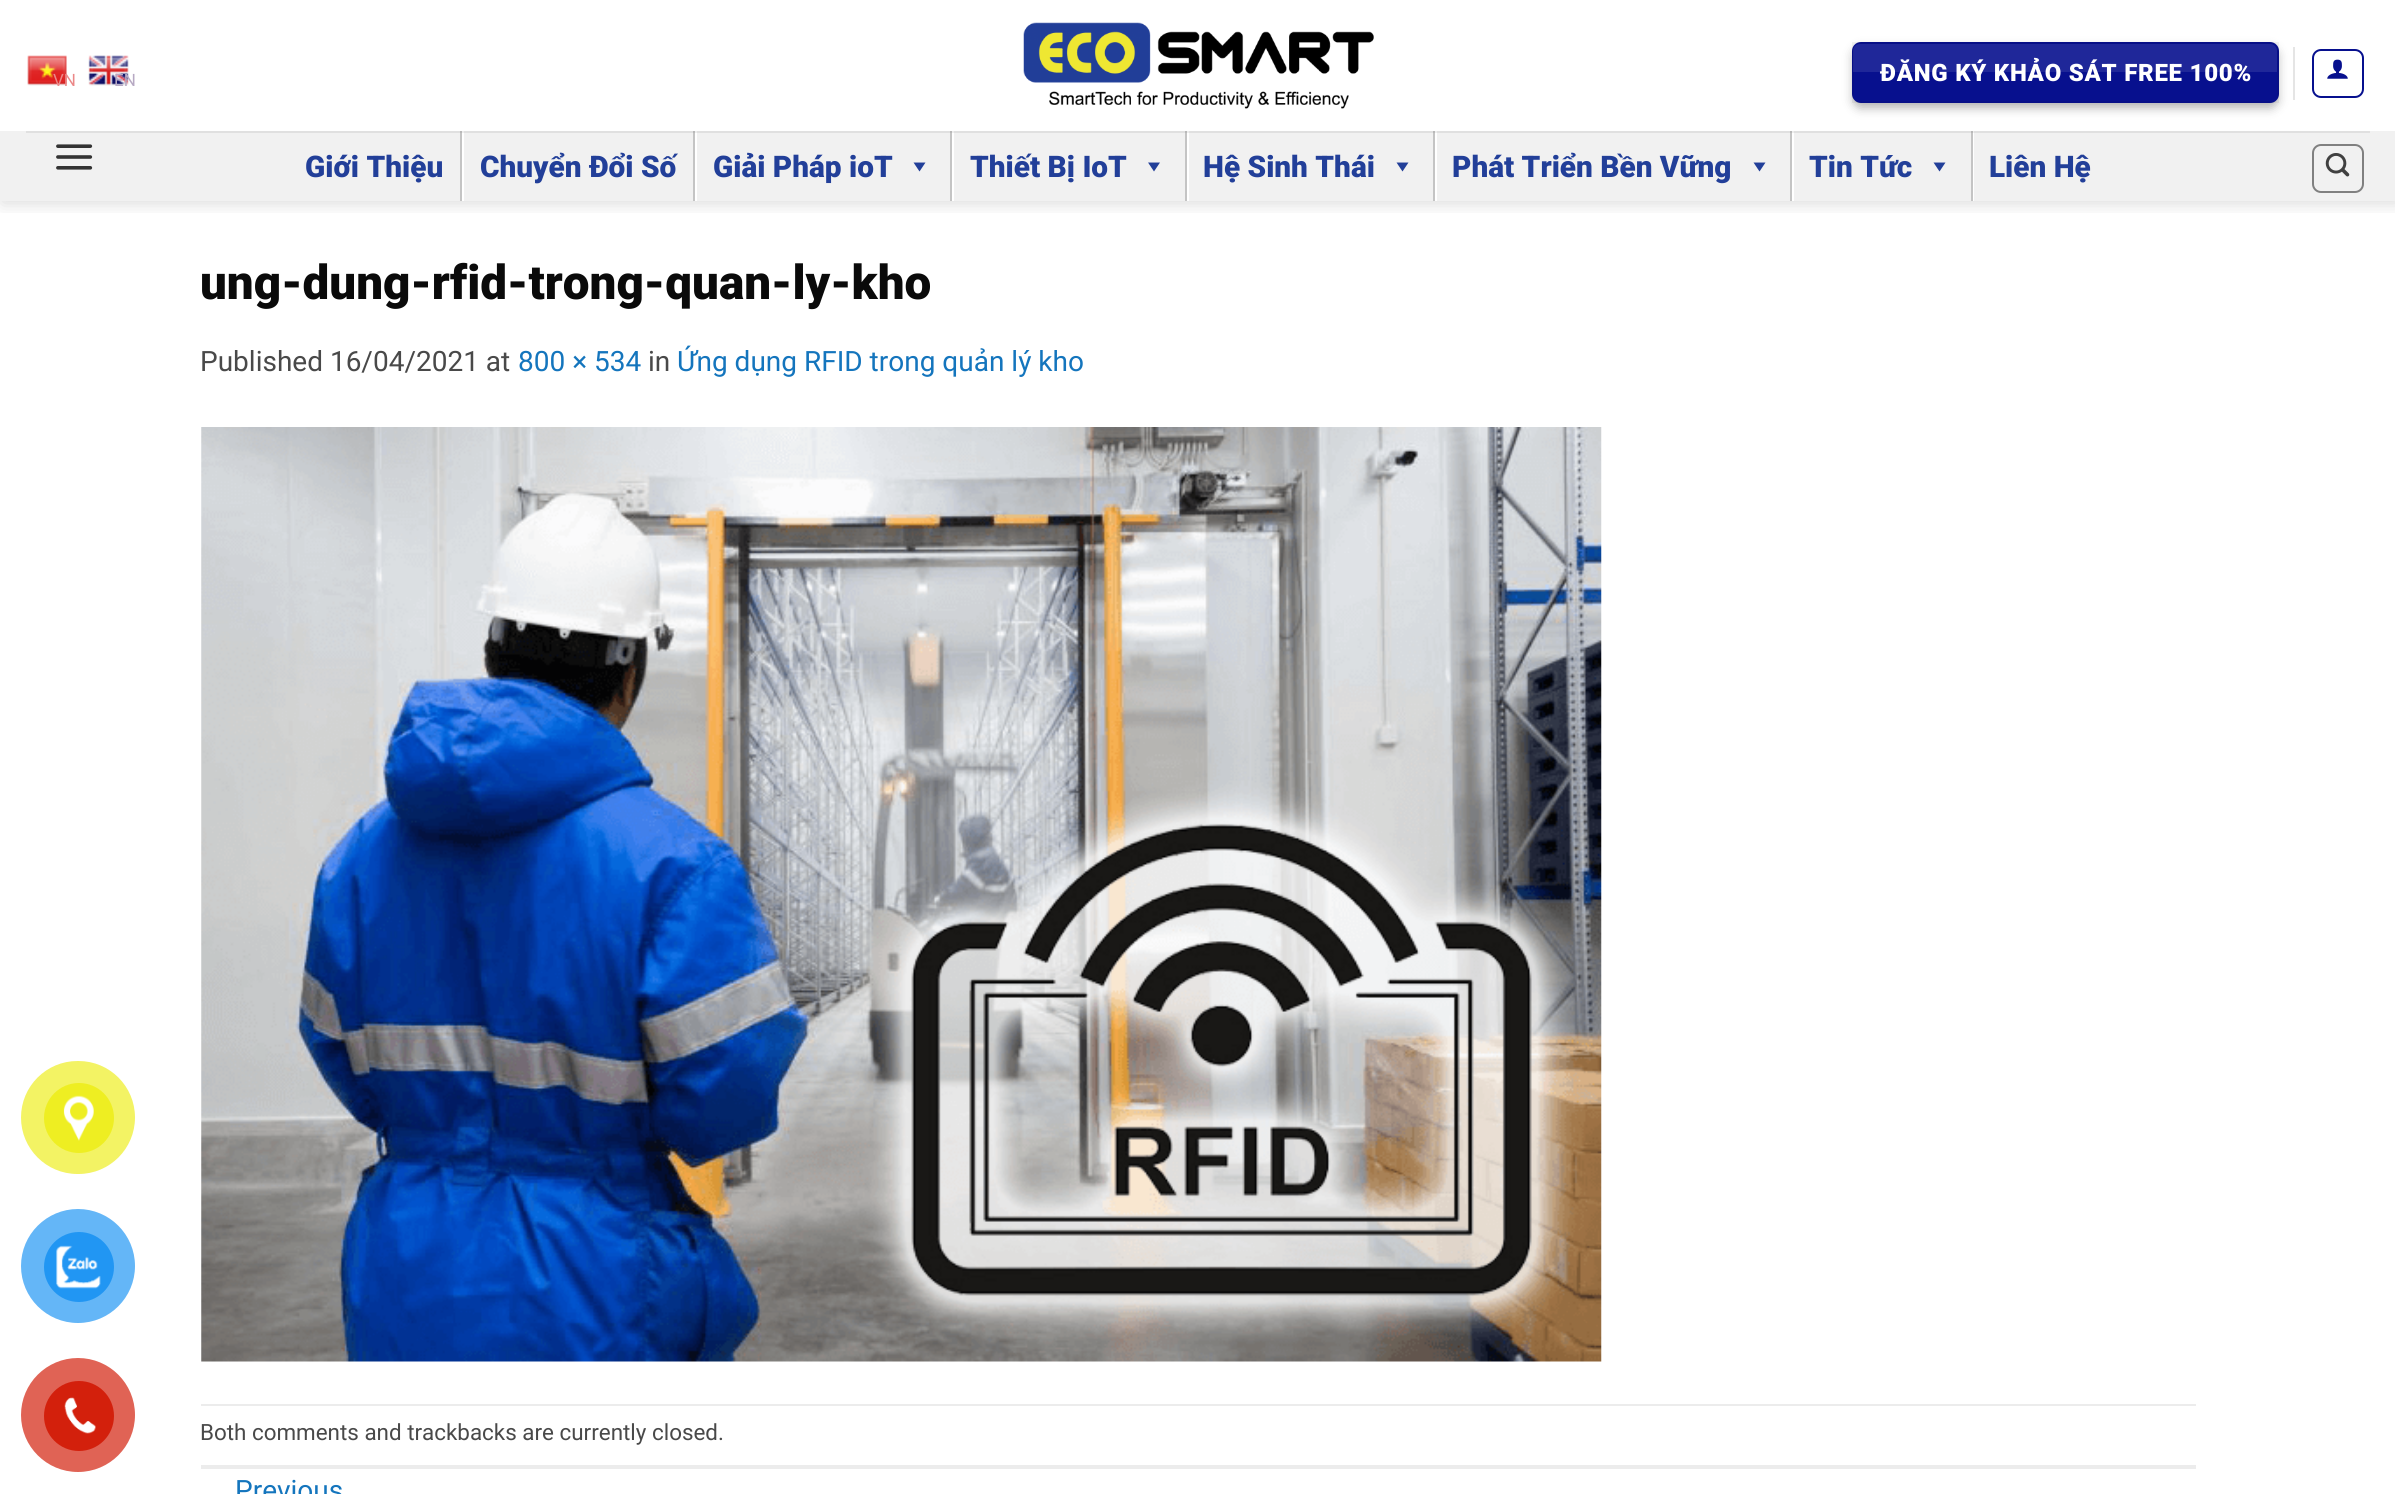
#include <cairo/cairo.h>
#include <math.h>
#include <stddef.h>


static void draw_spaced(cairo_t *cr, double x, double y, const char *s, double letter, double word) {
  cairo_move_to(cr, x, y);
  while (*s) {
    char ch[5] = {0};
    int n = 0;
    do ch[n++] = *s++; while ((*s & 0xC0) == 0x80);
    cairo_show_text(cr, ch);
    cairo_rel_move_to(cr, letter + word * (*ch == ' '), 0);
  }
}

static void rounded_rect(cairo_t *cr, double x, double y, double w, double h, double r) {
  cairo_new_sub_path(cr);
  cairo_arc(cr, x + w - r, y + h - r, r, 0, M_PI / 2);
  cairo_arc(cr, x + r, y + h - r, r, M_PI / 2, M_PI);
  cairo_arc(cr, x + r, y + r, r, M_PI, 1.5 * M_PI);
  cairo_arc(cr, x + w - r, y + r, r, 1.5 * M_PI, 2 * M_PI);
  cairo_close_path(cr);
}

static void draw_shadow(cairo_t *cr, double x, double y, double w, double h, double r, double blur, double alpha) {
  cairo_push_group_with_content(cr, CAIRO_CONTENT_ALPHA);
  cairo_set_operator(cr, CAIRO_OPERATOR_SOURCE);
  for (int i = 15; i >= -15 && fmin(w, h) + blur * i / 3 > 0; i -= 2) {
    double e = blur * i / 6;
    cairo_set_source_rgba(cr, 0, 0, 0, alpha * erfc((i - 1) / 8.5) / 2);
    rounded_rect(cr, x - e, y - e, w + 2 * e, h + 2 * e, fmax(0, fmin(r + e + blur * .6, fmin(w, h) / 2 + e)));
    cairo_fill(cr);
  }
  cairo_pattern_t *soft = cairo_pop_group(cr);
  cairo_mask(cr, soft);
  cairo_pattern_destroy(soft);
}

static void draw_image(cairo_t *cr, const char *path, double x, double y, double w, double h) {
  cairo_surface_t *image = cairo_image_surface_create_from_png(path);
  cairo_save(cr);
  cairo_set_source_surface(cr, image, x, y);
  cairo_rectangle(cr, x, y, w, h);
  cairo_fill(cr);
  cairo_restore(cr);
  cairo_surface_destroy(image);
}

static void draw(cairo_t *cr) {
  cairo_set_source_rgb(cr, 1, 1, 1);
  cairo_paint(cr);
  cairo_save(cr);
  cairo_rectangle(cr, 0, 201, 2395, 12);
  cairo_clip(cr);
  cairo_set_source_rgb(cr, 0, 0, 0);
  draw_shadow(cr, 2, 2, 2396, 201, 0, 9, 0.15);
  cairo_restore(cr);
  draw_image(cr, "images/1.png", 27, 55, 40, 31);
  draw_image(cr, "images/2.png", 88, 55, 41, 31);
  draw_image(cr, "images/3.png", 1023, 22, 351, 87);
  cairo_set_source_rgb(cr, 0, 0, 0);
  draw_shadow(cr, 1852, 47, 427, 62, 9, 5, 0.23);
  draw_shadow(cr, 1859, 54, 413, 48, 2, 5, 0.16);
  cairo_set_source_rgb(cr, 7 / 255.0, 16 / 255.0, 142 / 255.0);
  rounded_rect(cr, 1852, 42, 427, 61, 9);
  cairo_fill(cr);
  cairo_rectangle(cr, 1853, 43, 425, 59);
  cairo_set_source_rgba(cr, 0, 0, 0, 0.05);
  cairo_stroke(cr);
  cairo_set_source_rgba(cr, 1, 1, 1, 0.1);
  cairo_new_path(cr);
  cairo_move_to(cr, 1860, 44);
  cairo_line_to(cr, 2270, 44);
  cairo_curve_to(cr, 2274, 44, 2277, 47, 2277, 51);
  cairo_line_to(cr, 2277, 72);
  cairo_line_to(cr, 1853, 72);
  cairo_line_to(cr, 1853, 51);
  cairo_curve_to(cr, 1853, 47, 1856, 44, 1860, 44);
  cairo_close_path(cr);
  cairo_fill(cr);
  cairo_set_source_rgb(cr, 229 / 255.0, 229 / 255.0, 229 / 255.0);
  cairo_rectangle(cr, 2293, 47, 2, 53);
  cairo_fill(cr);
  rounded_rect(cr, 2313, 50, 50, 47, 8);
  cairo_set_source_rgb(cr, 7 / 255.0, 16 / 255.0, 142 / 255.0);
  cairo_stroke(cr);
  draw_image(cr, "images/4.png", 2327, 59, 21, 20);
  cairo_set_source_rgb(cr, 241 / 255.0, 241 / 255.0, 241 / 255.0);
  cairo_rectangle(cr, 0, 131, 2395, 70);
  cairo_fill(cr);
  cairo_set_source_rgb(cr, 224 / 255.0, 224 / 255.0, 224 / 255.0);
  cairo_rectangle(cr, 26, 131, 2344, 2);
  cairo_fill(cr);
  draw_image(cr, "images/5.png", 56, 144, 37, 26);
  cairo_set_source_rgb(cr, 1, 1, 1);
  cairo_rectangle(cr, 462, 131, 2, 70);
  cairo_fill(cr);
  cairo_set_source_rgb(cr, 237 / 255.0, 237 / 255.0, 237 / 255.0);
  cairo_rectangle(cr, 462, 131, 2, 2);
  cairo_fill(cr);
  cairo_set_source_rgb(cr, 196 / 255.0, 196 / 255.0, 196 / 255.0);
  cairo_rectangle(cr, 460, 131, 2, 70);
  cairo_fill(cr);
  cairo_set_source_rgb(cr, 184 / 255.0, 184 / 255.0, 184 / 255.0);
  cairo_rectangle(cr, 460, 131, 2, 2);
  cairo_fill(cr);
  cairo_set_source_rgb(cr, 1, 1, 1);
  cairo_rectangle(cr, 695, 131, 2, 70);
  cairo_fill(cr);
  cairo_set_source_rgb(cr, 237 / 255.0, 237 / 255.0, 237 / 255.0);
  cairo_rectangle(cr, 695, 131, 2, 2);
  cairo_fill(cr);
  cairo_set_source_rgb(cr, 196 / 255.0, 196 / 255.0, 196 / 255.0);
  cairo_rectangle(cr, 693, 131, 2, 70);
  cairo_fill(cr);
  cairo_set_source_rgb(cr, 184 / 255.0, 184 / 255.0, 184 / 255.0);
  cairo_rectangle(cr, 693, 131, 2, 2);
  cairo_fill(cr);
  cairo_set_source_rgb(cr, 34 / 255.0, 63 / 255.0, 153 / 255.0);
  cairo_new_path(cr);
  cairo_move_to(cr, 925.5, 162.5);
  cairo_line_to(cr, 919.5, 171.5);
  cairo_line_to(cr, 913.5, 162.5);
  cairo_close_path(cr);
  cairo_fill(cr);
  cairo_set_source_rgb(cr, 1, 1, 1);
  cairo_rectangle(cr, 952, 131, 2, 70);
  cairo_fill(cr);
  cairo_set_source_rgb(cr, 237 / 255.0, 237 / 255.0, 237 / 255.0);
  cairo_rectangle(cr, 952, 131, 2, 2);
  cairo_fill(cr);
  cairo_set_source_rgb(cr, 196 / 255.0, 196 / 255.0, 196 / 255.0);
  cairo_rectangle(cr, 950, 131, 2, 70);
  cairo_fill(cr);
  cairo_set_source_rgb(cr, 184 / 255.0, 184 / 255.0, 184 / 255.0);
  cairo_rectangle(cr, 950, 131, 2, 2);
  cairo_fill(cr);
  cairo_set_source_rgb(cr, 34 / 255.0, 63 / 255.0, 153 / 255.0);
  cairo_new_path(cr);
  cairo_move_to(cr, 1160, 162.5);
  cairo_line_to(cr, 1154, 171.5);
  cairo_line_to(cr, 1148, 162.5);
  cairo_close_path(cr);
  cairo_fill(cr);
  cairo_set_source_rgb(cr, 1, 1, 1);
  cairo_rectangle(cr, 1187, 131, 2, 70);
  cairo_fill(cr);
  cairo_set_source_rgb(cr, 237 / 255.0, 237 / 255.0, 237 / 255.0);
  cairo_rectangle(cr, 1187, 131, 2, 2);
  cairo_fill(cr);
  cairo_set_source_rgb(cr, 196 / 255.0, 196 / 255.0, 196 / 255.0);
  cairo_rectangle(cr, 1185, 131, 2, 70);
  cairo_fill(cr);
  cairo_set_source_rgb(cr, 184 / 255.0, 184 / 255.0, 184 / 255.0);
  cairo_rectangle(cr, 1185, 131, 2, 2);
  cairo_fill(cr);
  cairo_set_source_rgb(cr, 34 / 255.0, 63 / 255.0, 153 / 255.0);
  cairo_new_path(cr);
  cairo_move_to(cr, 1408.5, 162.5);
  cairo_line_to(cr, 1402.5, 171.5);
  cairo_line_to(cr, 1396.5, 162.5);
  cairo_close_path(cr);
  cairo_fill(cr);
  cairo_set_source_rgb(cr, 1, 1, 1);
  cairo_rectangle(cr, 1435, 131, 2, 70);
  cairo_fill(cr);
  cairo_set_source_rgb(cr, 237 / 255.0, 237 / 255.0, 237 / 255.0);
  cairo_rectangle(cr, 1435, 131, 2, 2);
  cairo_fill(cr);
  cairo_set_source_rgb(cr, 196 / 255.0, 196 / 255.0, 196 / 255.0);
  cairo_rectangle(cr, 1433, 131, 2, 70);
  cairo_fill(cr);
  cairo_set_source_rgb(cr, 184 / 255.0, 184 / 255.0, 184 / 255.0);
  cairo_rectangle(cr, 1433, 131, 2, 2);
  cairo_fill(cr);
  cairo_set_source_rgb(cr, 34 / 255.0, 63 / 255.0, 153 / 255.0);
  cairo_new_path(cr);
  cairo_move_to(cr, 1765.5, 162.5);
  cairo_line_to(cr, 1759.5, 171.5);
  cairo_line_to(cr, 1753.5, 162.5);
  cairo_close_path(cr);
  cairo_fill(cr);
  cairo_set_source_rgb(cr, 1, 1, 1);
  cairo_rectangle(cr, 1792, 131, 2, 70);
  cairo_fill(cr);
  cairo_set_source_rgb(cr, 237 / 255.0, 237 / 255.0, 237 / 255.0);
  cairo_rectangle(cr, 1792, 131, 2, 2);
  cairo_fill(cr);
  cairo_set_source_rgb(cr, 196 / 255.0, 196 / 255.0, 196 / 255.0);
  cairo_rectangle(cr, 1790, 131, 2, 70);
  cairo_fill(cr);
  cairo_set_source_rgb(cr, 184 / 255.0, 184 / 255.0, 184 / 255.0);
  cairo_rectangle(cr, 1790, 131, 2, 2);
  cairo_fill(cr);
  cairo_set_source_rgb(cr, 34 / 255.0, 63 / 255.0, 153 / 255.0);
  cairo_new_path(cr);
  cairo_move_to(cr, 1945.5, 162.5);
  cairo_line_to(cr, 1939.5, 171.5);
  cairo_line_to(cr, 1933.5, 162.5);
  cairo_close_path(cr);
  cairo_fill(cr);
  cairo_set_source_rgb(cr, 1, 1, 1);
  cairo_rectangle(cr, 1973, 131, 1, 70);
  cairo_fill(cr);
  cairo_set_source_rgb(cr, 237 / 255.0, 237 / 255.0, 237 / 255.0);
  cairo_rectangle(cr, 1972, 131, 2, 2);
  cairo_fill(cr);
  cairo_set_source_rgb(cr, 196 / 255.0, 196 / 255.0, 196 / 255.0);
  cairo_rectangle(cr, 1971, 131, 2, 70);
  cairo_fill(cr);
  cairo_set_source_rgb(cr, 184 / 255.0, 184 / 255.0, 184 / 255.0);
  cairo_rectangle(cr, 1971, 131, 2, 2);
  cairo_fill(cr);
  rounded_rect(cr, 2313, 145, 50, 47, 8);
  cairo_set_source_rgb(cr, 128 / 255.0, 128 / 255.0, 128 / 255.0);
  cairo_stroke(cr);
  draw_image(cr, "images/6.png", 2325, 153, 25, 24);
  draw_image(cr, "images/7.png", 201, 427, 1401, 935);
  cairo_set_source_rgb(cr, 236 / 255.0, 236 / 255.0, 236 / 255.0);
  cairo_rectangle(cr, 201, 1404, 1995, 2);
  cairo_fill(cr);
  cairo_rectangle(cr, 201, 1465, 1995, 4);
  cairo_fill(cr);
  cairo_set_source_rgb(cr, 243 / 255.0, 243 / 255.0, 100 / 255.0);
  rounded_rect(cr, 21, 1061, 114, 113, 56.5);
  cairo_fill(cr);
  cairo_set_source_rgb(cr, 238 / 255.0, 238 / 255.0, 34 / 255.0);
  cairo_arc(cr, 79, 1118, 35, 0, 2 * M_PI);
  cairo_fill(cr);
  draw_image(cr, "images/8.png", 63, 1095, 31, 46);
  cairo_set_source_rgb(cr, 100 / 255.0, 182 / 255.0, 247 / 255.0);
  cairo_arc(cr, 78, 1266, 57, 0, 2 * M_PI);
  cairo_fill(cr);
  cairo_set_source_rgb(cr, 33 / 255.0, 150 / 255.0, 243 / 255.0);
  cairo_arc(cr, 79, 1267, 35, 0, 2 * M_PI);
  cairo_fill(cr);
  draw_image(cr, "images/9.png", 56, 1245, 45, 44);
  cairo_set_source_rgb(cr, 224 / 255.0, 99 / 255.0, 85 / 255.0);
  cairo_arc(cr, 78, 1415, 57, 0, 2 * M_PI);
  cairo_fill(cr);
  cairo_set_source_rgb(cr, 211 / 255.0, 32 / 255.0, 12 / 255.0);
  cairo_arc(cr, 79, 1416, 35, 0, 2 * M_PI);
  cairo_fill(cr);
  draw_image(cr, "images/10.png", 64, 1397, 32, 37);
  cairo_select_font_face(cr, "Roboto", CAIRO_FONT_SLANT_NORMAL, CAIRO_FONT_WEIGHT_NORMAL);
  cairo_set_font_size(cr, 17);
  cairo_set_source_rgb(cr, 235 / 255.0, 136 / 255.0, 136 / 255.0);
  cairo_move_to(cr, 53, 86);
  cairo_show_text(cr, "VN");
  cairo_set_source_rgb(cr, 183 / 255.0, 169 / 255.0, 195 / 255.0);
  cairo_move_to(cr, 114, 86);
  cairo_show_text(cr, "EN");
  cairo_select_font_face(cr, "Roboto Black", CAIRO_FONT_SLANT_NORMAL, CAIRO_FONT_WEIGHT_NORMAL);
  cairo_set_font_size(cr, 24);
  cairo_set_source_rgb(cr, 1, 1, 1);
  draw_spaced(cr, 1880, 81, "ĐĂNG KÝ KHẢO SÁT FREE 100%", 0.75, 0);
  cairo_set_font_size(cr, 29.75);
  cairo_set_source_rgb(cr, 34 / 255.0, 63 / 255.0, 153 / 255.0);
  cairo_move_to(cr, 305, 177);
  cairo_show_text(cr, "Giới Thiệu");
  cairo_move_to(cr, 480, 177);
  cairo_show_text(cr, "Chuyển Đổi Số");
  cairo_move_to(cr, 713, 177);
  cairo_show_text(cr, "Giải Pháp ioT");
  cairo_move_to(cr, 970, 177);
  cairo_show_text(cr, "Thiết Bị IoT");
  cairo_move_to(cr, 1203, 177);
  cairo_show_text(cr, "Hệ Sinh Thái");
  cairo_move_to(cr, 1452, 177);
  cairo_show_text(cr, "Phát Triển Bền Vững");
  cairo_move_to(cr, 1809, 177);
  cairo_show_text(cr, "Tin Tức");
  cairo_move_to(cr, 1989, 177);
  cairo_show_text(cr, "Liên Hệ");
  cairo_set_font_size(cr, 47.6);
  cairo_set_source_rgb(cr, 10 / 255.0, 10 / 255.0, 10 / 255.0);
  cairo_move_to(cr, 200, 299);
  cairo_show_text(cr, "ung-dung-rfid-trong-quan-ly-kho");
  cairo_select_font_face(cr, "Roboto", CAIRO_FONT_SLANT_NORMAL, CAIRO_FONT_WEIGHT_NORMAL);
  cairo_set_font_size(cr, 28);
  cairo_set_source_rgb(cr, 73 / 255.0, 73 / 255.0, 73 / 255.0);
  cairo_move_to(cr, 200, 371);
  cairo_show_text(cr, "Published 16/04/2021 at");
  cairo_set_source_rgb(cr, 20 / 255.0, 117 / 255.0, 189 / 255.0);
  cairo_move_to(cr, 518, 371);
  cairo_show_text(cr, "800 × 534");
  cairo_set_source_rgb(cr, 73 / 255.0, 73 / 255.0, 73 / 255.0);
  cairo_move_to(cr, 648, 371);
  cairo_show_text(cr, "in");
  cairo_set_source_rgb(cr, 20 / 255.0, 117 / 255.0, 189 / 255.0);
  cairo_move_to(cr, 677, 371);
  cairo_show_text(cr, "Ứng dụng RFID trong quản lý kho");
  cairo_set_font_size(cr, 22.4);
  cairo_set_source_rgb(cr, 73 / 255.0, 73 / 255.0, 73 / 255.0);
  cairo_move_to(cr, 200, 1440);
  cairo_show_text(cr, "Both comments and trackbacks are currently closed.");
  cairo_set_font_size(cr, 28);
  cairo_set_source_rgb(cr, 20 / 255.0, 117 / 255.0, 189 / 255.0);
  cairo_move_to(cr, 235, 1500);
  cairo_show_text(cr, "Previous");
}

int main(void) {
  cairo_surface_t *surface = cairo_image_surface_create(CAIRO_FORMAT_RGB24, 2395, 1494);
  cairo_t *cr = cairo_create(surface);
  cairo_font_options_t *options = cairo_font_options_create();
  cairo_font_options_set_hint_metrics(options, CAIRO_HINT_METRICS_OFF);
  cairo_font_options_set_hint_style(options, CAIRO_HINT_STYLE_NONE);
  cairo_set_font_options(cr, options);
  cairo_set_miter_limit(cr, 4);
  draw(cr);
  cairo_surface_write_to_png(surface, "out.png");
  cairo_font_options_destroy(options);
  cairo_destroy(cr);
  cairo_surface_destroy(surface);
  return 0;
}
